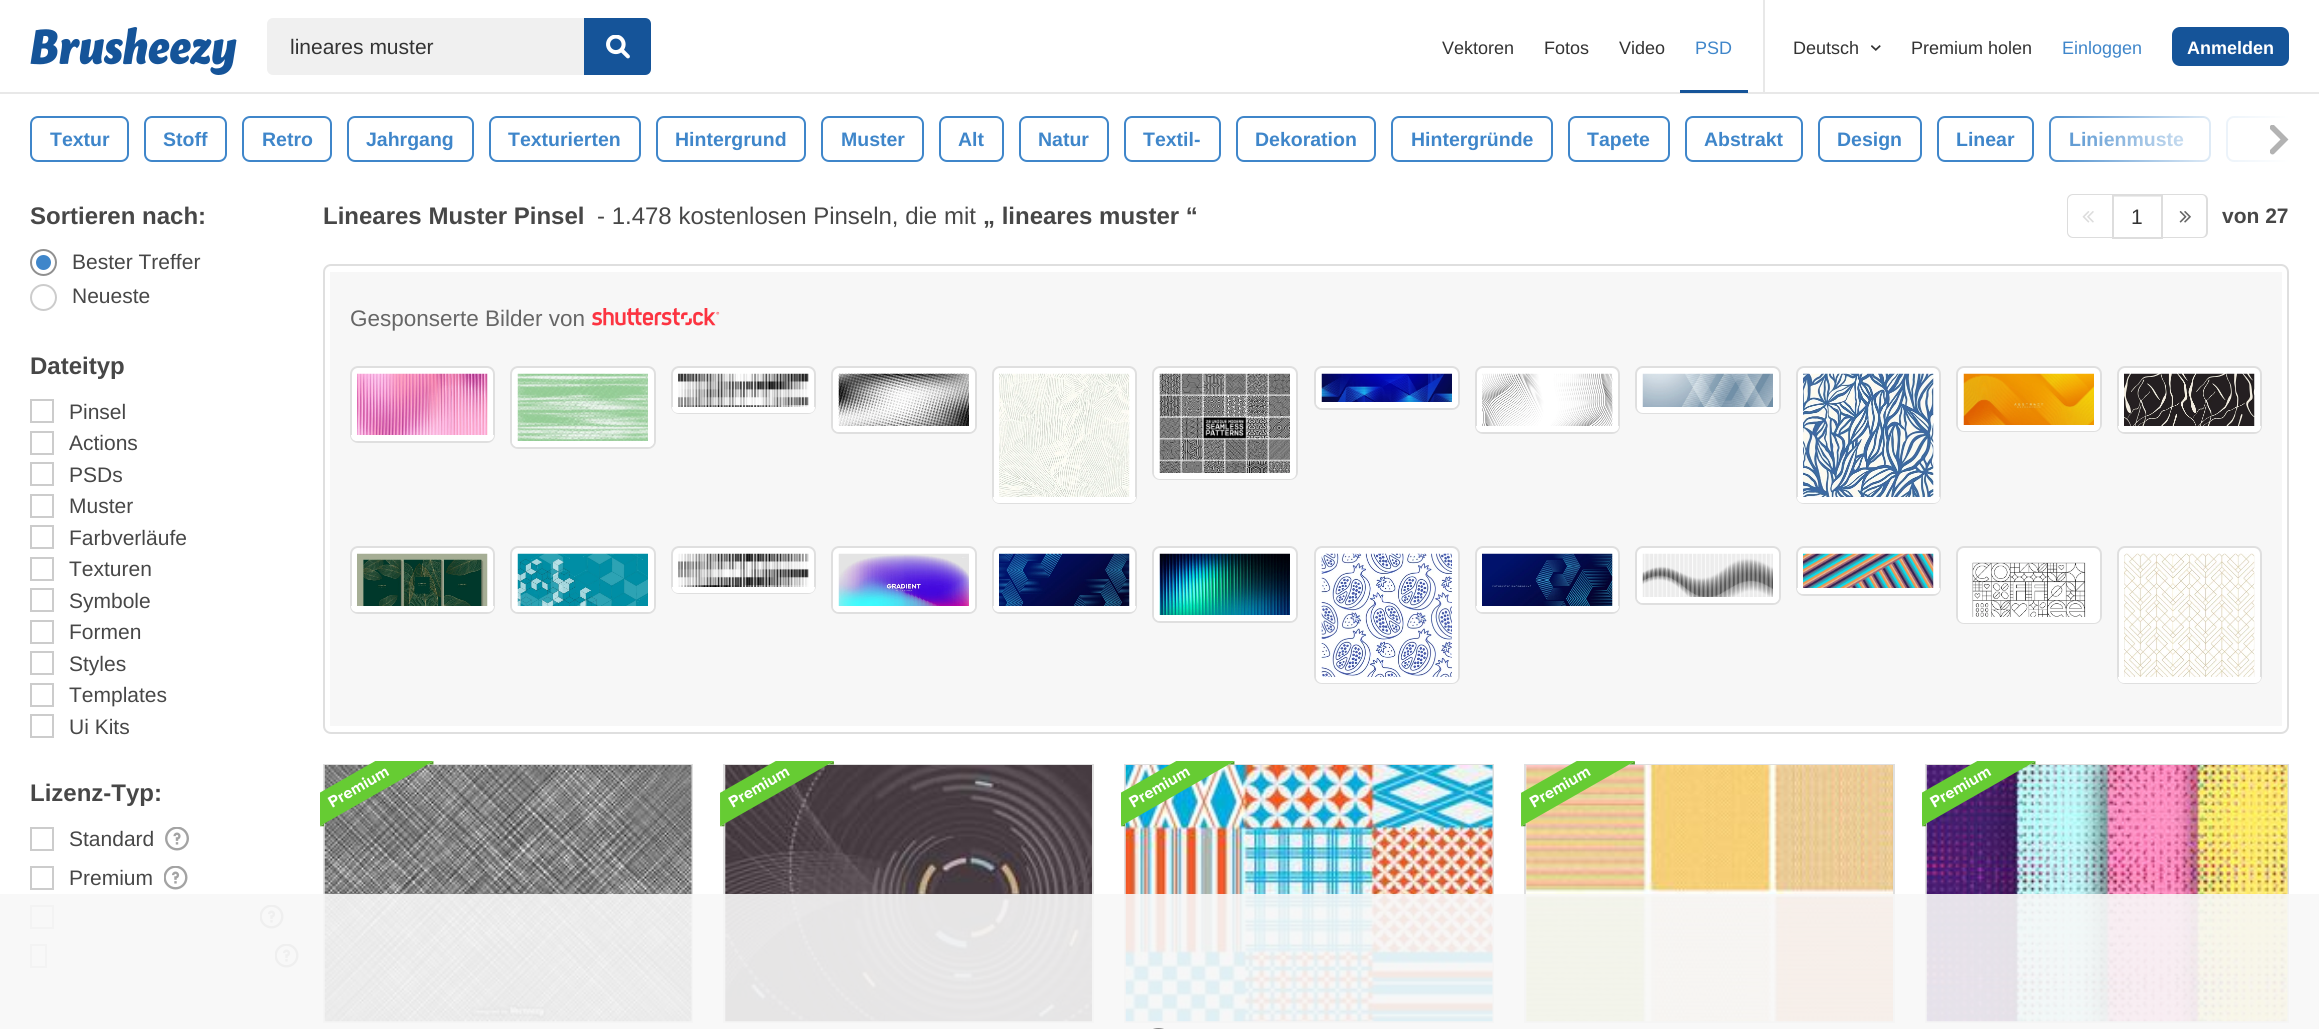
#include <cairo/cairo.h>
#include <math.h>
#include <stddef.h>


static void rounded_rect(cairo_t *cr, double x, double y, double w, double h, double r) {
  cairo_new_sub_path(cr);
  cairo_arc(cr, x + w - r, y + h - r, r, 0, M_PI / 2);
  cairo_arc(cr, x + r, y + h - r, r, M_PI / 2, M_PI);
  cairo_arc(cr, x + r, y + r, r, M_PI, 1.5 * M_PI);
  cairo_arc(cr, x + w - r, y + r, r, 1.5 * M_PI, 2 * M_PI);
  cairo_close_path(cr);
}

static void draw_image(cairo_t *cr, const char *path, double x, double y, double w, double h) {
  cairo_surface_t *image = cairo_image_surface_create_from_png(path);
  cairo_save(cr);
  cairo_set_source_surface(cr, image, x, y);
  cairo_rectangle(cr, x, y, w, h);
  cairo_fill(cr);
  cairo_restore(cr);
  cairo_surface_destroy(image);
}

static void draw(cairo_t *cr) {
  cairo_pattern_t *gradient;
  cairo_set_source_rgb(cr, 1, 1, 1);
  cairo_paint(cr);
  cairo_set_source_rgb(cr, 232 / 255.0, 232 / 255.0, 232 / 255.0);
  cairo_rectangle(cr, 0, 92, 2319, 2);
  cairo_fill(cr);
  draw_image(cr, "images/1.png", 30, 27, 207, 48);
  cairo_set_source_rgb(cr, 240 / 255.0, 240 / 255.0, 240 / 255.0);
  rounded_rect(cr, 267, 18, 384, 57, 6);
  cairo_fill(cr);
  cairo_set_source_rgb(cr, 21 / 255.0, 84 / 255.0, 153 / 255.0);
  cairo_new_path(cr);
  cairo_move_to(cr, 584, 18);
  cairo_line_to(cr, 645, 18);
  cairo_curve_to(cr, 648.5, 18, 651, 20.5, 651, 24);
  cairo_line_to(cr, 651, 69);
  cairo_curve_to(cr, 651, 72.5, 648.5, 75, 645, 75);
  cairo_line_to(cr, 584, 75);
  cairo_close_path(cr);
  cairo_fill(cr);
  draw_image(cr, "images/2.png", 606, 35, 24, 24);
  cairo_rectangle(cr, 1680, 90, 68, 3);
  cairo_fill(cr);
  cairo_set_source_rgb(cr, 232 / 255.0, 232 / 255.0, 232 / 255.0);
  cairo_rectangle(cr, 1763, 0, 2, 93);
  cairo_fill(cr);
  draw_image(cr, "images/3.png", 1871, 45, 10, 6);
  cairo_set_source_rgb(cr, 21 / 255.0, 84 / 255.0, 153 / 255.0);
  rounded_rect(cr, 2172, 27, 117, 39, 8);
  cairo_fill(cr);
  rounded_rect(cr, 31, 117, 97, 44, 7);
  cairo_set_source_rgb(cr, 63 / 255.0, 134 / 255.0, 202 / 255.0);
  cairo_stroke(cr);
  rounded_rect(cr, 145, 117, 81, 44, 7);
  cairo_stroke(cr);
  rounded_rect(cr, 243, 117, 88, 44, 7);
  cairo_stroke(cr);
  rounded_rect(cr, 348, 117, 125, 44, 7);
  cairo_stroke(cr);
  rounded_rect(cr, 490, 117, 150, 44, 7);
  cairo_stroke(cr);
  rounded_rect(cr, 657, 117, 148, 44, 7);
  cairo_stroke(cr);
  rounded_rect(cr, 822, 117, 101, 44, 7);
  cairo_stroke(cr);
  rounded_rect(cr, 940, 117, 63, 44, 7);
  cairo_stroke(cr);
  rounded_rect(cr, 1020, 117, 88, 44, 7);
  cairo_stroke(cr);
  rounded_rect(cr, 1125, 117, 95, 44, 7);
  cairo_stroke(cr);
  rounded_rect(cr, 1237, 117, 138, 44, 7);
  cairo_stroke(cr);
  rounded_rect(cr, 1392, 117, 160, 44, 7);
  cairo_stroke(cr);
  rounded_rect(cr, 1569, 117, 100, 44, 7);
  cairo_stroke(cr);
  rounded_rect(cr, 1686, 117, 116, 44, 7);
  cairo_stroke(cr);
  rounded_rect(cr, 1819, 117, 102, 44, 7);
  cairo_stroke(cr);
  rounded_rect(cr, 1938, 117, 95, 44, 7);
  cairo_stroke(cr);
  rounded_rect(cr, 2050, 117, 160, 44, 7);
  cairo_stroke(cr);
  cairo_save(cr);
  cairo_rectangle(cr, 30, 116, 2259, 66);
  cairo_clip(cr);
  rounded_rect(cr, 2227, 117, 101, 44, 7);
  cairo_stroke(cr);
  cairo_restore(cr);
  cairo_arc(cr, 43.5, 262.5, 12.5, 0, 2 * M_PI);
  cairo_set_source_rgb(cr, 144 / 255.0, 144 / 255.0, 144 / 255.0);
  cairo_stroke(cr);
  cairo_set_source_rgb(cr, 63 / 255.0, 134 / 255.0, 202 / 255.0);
  cairo_arc(cr, 43.5, 262.5, 7.5, 0, 2 * M_PI);
  cairo_fill(cr);
  cairo_arc(cr, 43.5, 297.5, 12.5, 0, 2 * M_PI);
  cairo_set_source_rgb(cr, 204 / 255.0, 204 / 255.0, 204 / 255.0);
  cairo_stroke(cr);
  cairo_rectangle(cr, 31, 400, 22, 22);
  cairo_stroke(cr);
  cairo_rectangle(cr, 31, 432, 22, 22);
  cairo_stroke(cr);
  cairo_rectangle(cr, 31, 463, 22, 22);
  cairo_stroke(cr);
  cairo_rectangle(cr, 31, 495, 22, 22);
  cairo_stroke(cr);
  cairo_rectangle(cr, 31, 526, 22, 22);
  cairo_stroke(cr);
  cairo_rectangle(cr, 31, 558, 22, 22);
  cairo_stroke(cr);
  cairo_rectangle(cr, 31, 589, 22, 22);
  cairo_stroke(cr);
  cairo_rectangle(cr, 31, 621, 22, 22);
  cairo_stroke(cr);
  cairo_rectangle(cr, 31, 652, 22, 22);
  cairo_stroke(cr);
  cairo_rectangle(cr, 31, 684, 22, 22);
  cairo_stroke(cr);
  cairo_rectangle(cr, 31, 715, 22, 22);
  cairo_stroke(cr);
  cairo_rectangle(cr, 31, 828, 22, 22);
  cairo_stroke(cr);
  draw_image(cr, "images/5.png", 165, 827, 24, 24);
  cairo_rectangle(cr, 31, 867, 22, 22);
  cairo_stroke(cr);
  draw_image(cr, "images/6.png", 164, 866, 24, 24);
  cairo_rectangle(cr, 31, 906, 22, 22);
  cairo_stroke(cr);
  draw_image(cr, "images/6.png", 260, 905, 24, 24);
  cairo_rectangle(cr, 31, 945, 15, 22);
  cairo_stroke(cr);
  draw_image(cr, "images/6.png", 275, 944, 24, 24);
  cairo_set_source_rgb(cr, 221 / 255.0, 221 / 255.0, 221 / 255.0);
  cairo_set_fill_rule(cr, CAIRO_FILL_RULE_EVEN_ODD);
  cairo_new_path(cr);
  cairo_move_to(cr, 2073, 194);
  cairo_line_to(cr, 2112, 194);
  cairo_line_to(cr, 2112, 238);
  cairo_line_to(cr, 2073, 238);
  cairo_curve_to(cr, 2070, 238, 2067, 236, 2067, 232);
  cairo_line_to(cr, 2067, 200);
  cairo_curve_to(cr, 2067, 196, 2070, 194, 2073, 194);
  cairo_close_path(cr);
  cairo_move_to(cr, 2073, 195);
  cairo_line_to(cr, 2112, 195);
  cairo_line_to(cr, 2112, 237);
  cairo_line_to(cr, 2073, 237);
  cairo_curve_to(cr, 2071, 237, 2068, 235, 2068, 232);
  cairo_line_to(cr, 2068, 200);
  cairo_curve_to(cr, 2068, 197, 2071, 195, 2073, 195);
  cairo_close_path(cr);
  cairo_fill(cr);
  draw_image(cr, "images/7.png", 2082, 211, 12, 12);
  cairo_set_source_rgb(cr, 236 / 255.0, 236 / 255.0, 236 / 255.0);
  cairo_rectangle(cr, 2114, 196, 48, 1);
  cairo_fill(cr);
  cairo_rectangle(cr, 2113, 195, 49, 43);
  cairo_set_source_rgb(cr, 221 / 255.0, 221 / 255.0, 221 / 255.0);
  cairo_stroke(cr);
  cairo_new_path(cr);
  cairo_move_to(cr, 2163, 194);
  cairo_line_to(cr, 2202, 194);
  cairo_curve_to(cr, 2205, 194, 2208, 196, 2208, 200);
  cairo_line_to(cr, 2208, 232);
  cairo_curve_to(cr, 2208, 236, 2205, 238, 2202, 238);
  cairo_line_to(cr, 2163, 238);
  cairo_close_path(cr);
  cairo_move_to(cr, 2163, 195);
  cairo_line_to(cr, 2202, 195);
  cairo_curve_to(cr, 2204, 195, 2206, 197, 2206, 200);
  cairo_line_to(cr, 2206, 232);
  cairo_curve_to(cr, 2206, 235, 2204, 237, 2202, 237);
  cairo_line_to(cr, 2163, 237);
  cairo_close_path(cr);
  cairo_fill(cr);
  draw_image(cr, "images/8.png", 2179, 211, 12, 12);
  rounded_rect(cr, 324, 265, 1964, 468, 7);
  cairo_set_source_rgb(cr, 223 / 255.0, 223 / 255.0, 223 / 255.0);
  cairo_stroke(cr);
  cairo_set_source_rgb(cr, 247 / 255.0, 247 / 255.0, 247 / 255.0);
  cairo_rectangle(cr, 330, 272, 1952, 454);
  cairo_fill(cr);
  draw_image(cr, "images/9.png", 592, 308, 128, 18);
  cairo_set_source_rgb(cr, 1, 1, 1);
  rounded_rect(cr, 351, 367, 143, 75, 7);
  cairo_fill_preserve(cr);
  cairo_set_source_rgb(cr, 223 / 255.0, 223 / 255.0, 223 / 255.0);
  cairo_stroke(cr);
  draw_image(cr, "images/10.png", 357, 373, 131, 62);
  cairo_set_source_rgb(cr, 1, 1, 1);
  cairo_new_path(cr);
  cairo_move_to(cr, 351, 435);
  cairo_line_to(cr, 494, 435);
  cairo_curve_to(cr, 494, 438.5, 491.5, 441, 488, 441);
  cairo_line_to(cr, 357, 441);
  cairo_curve_to(cr, 353.5, 441, 351, 438.5, 351, 435);
  cairo_close_path(cr);
  cairo_fill(cr);
  rounded_rect(cr, 511, 367, 144, 81, 7);
  cairo_fill_preserve(cr);
  cairo_set_source_rgb(cr, 223 / 255.0, 223 / 255.0, 223 / 255.0);
  cairo_stroke(cr);
  draw_image(cr, "images/11.png", 517, 373, 131, 74);
  cairo_set_source_rgb(cr, 1, 1, 1);
  cairo_new_path(cr);
  cairo_move_to(cr, 512, 441);
  cairo_line_to(cr, 654, 441);
  cairo_curve_to(cr, 654, 444.5, 651.5, 447, 648, 447);
  cairo_line_to(cr, 518, 447);
  cairo_curve_to(cr, 514.5, 447, 512, 444.5, 512, 441);
  cairo_close_path(cr);
  cairo_fill(cr);
  rounded_rect(cr, 672, 367, 143, 46, 7);
  cairo_fill_preserve(cr);
  cairo_set_source_rgb(cr, 223 / 255.0, 223 / 255.0, 223 / 255.0);
  cairo_stroke(cr);
  draw_image(cr, "images/12.png", 678, 373, 131, 34);
  cairo_set_source_rgb(cr, 1, 1, 1);
  cairo_new_path(cr);
  cairo_move_to(cr, 672, 407);
  cairo_line_to(cr, 815, 407);
  cairo_curve_to(cr, 815, 410.5, 812.5, 413, 809, 413);
  cairo_line_to(cr, 678, 413);
  cairo_curve_to(cr, 674.5, 413, 672, 410.5, 672, 407);
  cairo_close_path(cr);
  cairo_fill(cr);
  rounded_rect(cr, 832, 367, 144, 66, 7);
  cairo_fill_preserve(cr);
  cairo_set_source_rgb(cr, 223 / 255.0, 223 / 255.0, 223 / 255.0);
  cairo_stroke(cr);
  draw_image(cr, "images/13.png", 838, 373, 131, 59);
  cairo_set_source_rgb(cr, 1, 1, 1);
  cairo_new_path(cr);
  cairo_move_to(cr, 833, 426);
  cairo_line_to(cr, 975, 426);
  cairo_curve_to(cr, 975, 429.5, 972.5, 432, 969, 432);
  cairo_line_to(cr, 839, 432);
  cairo_curve_to(cr, 835.5, 432, 833, 429.5, 833, 426);
  cairo_close_path(cr);
  cairo_fill(cr);
  rounded_rect(cr, 993, 367, 143, 136, 7);
  cairo_fill_preserve(cr);
  cairo_set_source_rgb(cr, 223 / 255.0, 223 / 255.0, 223 / 255.0);
  cairo_stroke(cr);
  draw_image(cr, "images/14.png", 999, 373, 131, 124);
  cairo_set_source_rgb(cr, 1, 1, 1);
  cairo_new_path(cr);
  cairo_move_to(cr, 993, 497);
  cairo_line_to(cr, 1136, 497);
  cairo_curve_to(cr, 1136, 500.5, 1133.5, 503, 1130, 503);
  cairo_line_to(cr, 999, 503);
  cairo_curve_to(cr, 995.5, 503, 993, 500.5, 993, 497);
  cairo_close_path(cr);
  cairo_fill(cr);
  rounded_rect(cr, 1153, 367, 144, 112, 7);
  cairo_fill_preserve(cr);
  cairo_set_source_rgb(cr, 223 / 255.0, 223 / 255.0, 223 / 255.0);
  cairo_stroke(cr);
  draw_image(cr, "images/15.png", 1159, 373, 131, 106);
  cairo_set_source_rgb(cr, 1, 1, 1);
  cairo_new_path(cr);
  cairo_move_to(cr, 1154, 473);
  cairo_line_to(cr, 1296, 473);
  cairo_curve_to(cr, 1296, 476.5, 1293.5, 479, 1290, 479);
  cairo_line_to(cr, 1160, 479);
  cairo_curve_to(cr, 1156.5, 479, 1154, 476.5, 1154, 473);
  cairo_close_path(cr);
  cairo_fill(cr);
  rounded_rect(cr, 1315, 367, 144, 42, 7);
  cairo_fill_preserve(cr);
  cairo_set_source_rgb(cr, 223 / 255.0, 223 / 255.0, 223 / 255.0);
  cairo_stroke(cr);
  draw_image(cr, "images/16.png", 1321, 373, 131, 35);
  cairo_set_source_rgb(cr, 1, 1, 1);
  cairo_new_path(cr);
  cairo_move_to(cr, 1316, 402);
  cairo_line_to(cr, 1458, 402);
  cairo_curve_to(cr, 1458, 405.5, 1455.5, 408, 1452, 408);
  cairo_line_to(cr, 1322, 408);
  cairo_curve_to(cr, 1318.5, 408, 1316, 405.5, 1316, 402);
  cairo_close_path(cr);
  cairo_fill(cr);
  rounded_rect(cr, 1476, 367, 143, 66, 7);
  cairo_fill_preserve(cr);
  cairo_set_source_rgb(cr, 223 / 255.0, 223 / 255.0, 223 / 255.0);
  cairo_stroke(cr);
  draw_image(cr, "images/17.png", 1482, 373, 131, 53);
  cairo_set_source_rgb(cr, 1, 1, 1);
  cairo_new_path(cr);
  cairo_move_to(cr, 1476, 426);
  cairo_line_to(cr, 1619, 426);
  cairo_curve_to(cr, 1619, 429.5, 1616.5, 432, 1613, 432);
  cairo_line_to(cr, 1482, 432);
  cairo_curve_to(cr, 1478.5, 432, 1476, 429.5, 1476, 426);
  cairo_close_path(cr);
  cairo_fill(cr);
  rounded_rect(cr, 1636, 367, 144, 46, 7);
  cairo_fill_preserve(cr);
  cairo_set_source_rgb(cr, 223 / 255.0, 223 / 255.0, 223 / 255.0);
  cairo_stroke(cr);
  draw_image(cr, "images/18.png", 1642, 373, 131, 40);
  cairo_set_source_rgb(cr, 1, 1, 1);
  cairo_new_path(cr);
  cairo_move_to(cr, 1637, 407);
  cairo_line_to(cr, 1779, 407);
  cairo_curve_to(cr, 1779, 410.5, 1776.5, 413, 1773, 413);
  cairo_line_to(cr, 1643, 413);
  cairo_curve_to(cr, 1639.5, 413, 1637, 410.5, 1637, 407);
  cairo_close_path(cr);
  cairo_fill(cr);
  rounded_rect(cr, 1797, 367, 143, 136, 7);
  cairo_fill_preserve(cr);
  cairo_set_source_rgb(cr, 223 / 255.0, 223 / 255.0, 223 / 255.0);
  cairo_stroke(cr);
  draw_image(cr, "images/19.png", 1803, 373, 131, 124);
  cairo_set_source_rgb(cr, 1, 1, 1);
  cairo_new_path(cr);
  cairo_move_to(cr, 1797, 497);
  cairo_line_to(cr, 1940, 497);
  cairo_curve_to(cr, 1940, 500.5, 1937.5, 503, 1934, 503);
  cairo_line_to(cr, 1803, 503);
  cairo_curve_to(cr, 1799.5, 503, 1797, 500.5, 1797, 497);
  cairo_close_path(cr);
  cairo_fill(cr);
  rounded_rect(cr, 1957, 367, 144, 64, 7);
  cairo_fill_preserve(cr);
  cairo_set_source_rgb(cr, 223 / 255.0, 223 / 255.0, 223 / 255.0);
  cairo_stroke(cr);
  draw_image(cr, "images/20.png", 1963, 373, 131, 58);
  cairo_set_source_rgb(cr, 1, 1, 1);
  cairo_new_path(cr);
  cairo_move_to(cr, 1958, 425);
  cairo_line_to(cr, 2100, 425);
  cairo_curve_to(cr, 2100, 428.5, 2097.5, 431, 2094, 431);
  cairo_line_to(cr, 1964, 431);
  cairo_curve_to(cr, 1960.5, 431, 1958, 428.5, 1958, 425);
  cairo_close_path(cr);
  cairo_fill(cr);
  rounded_rect(cr, 2118, 367, 143, 66, 7);
  cairo_fill_preserve(cr);
  cairo_set_source_rgb(cr, 223 / 255.0, 223 / 255.0, 223 / 255.0);
  cairo_stroke(cr);
  draw_image(cr, "images/21.png", 2124, 373, 131, 53);
  cairo_set_source_rgb(cr, 1, 1, 1);
  cairo_new_path(cr);
  cairo_move_to(cr, 2118, 426);
  cairo_line_to(cr, 2261, 426);
  cairo_curve_to(cr, 2261, 429.5, 2258.5, 432, 2255, 432);
  cairo_line_to(cr, 2124, 432);
  cairo_curve_to(cr, 2120.5, 432, 2118, 429.5, 2118, 426);
  cairo_close_path(cr);
  cairo_fill(cr);
  rounded_rect(cr, 351, 547, 143, 66, 7);
  cairo_fill_preserve(cr);
  cairo_set_source_rgb(cr, 223 / 255.0, 223 / 255.0, 223 / 255.0);
  cairo_stroke(cr);
  draw_image(cr, "images/22.png", 357, 553, 131, 53);
  cairo_set_source_rgb(cr, 1, 1, 1);
  cairo_new_path(cr);
  cairo_move_to(cr, 351, 606);
  cairo_line_to(cr, 494, 606);
  cairo_curve_to(cr, 494, 609.5, 491.5, 612, 488, 612);
  cairo_line_to(cr, 357, 612);
  cairo_curve_to(cr, 353.5, 612, 351, 609.5, 351, 606);
  cairo_close_path(cr);
  cairo_fill(cr);
  rounded_rect(cr, 511, 547, 144, 66, 7);
  cairo_fill_preserve(cr);
  cairo_set_source_rgb(cr, 223 / 255.0, 223 / 255.0, 223 / 255.0);
  cairo_stroke(cr);
  draw_image(cr, "images/23.png", 517, 553, 131, 59);
  cairo_set_source_rgb(cr, 1, 1, 1);
  cairo_new_path(cr);
  cairo_move_to(cr, 512, 606);
  cairo_line_to(cr, 654, 606);
  cairo_curve_to(cr, 654, 609.5, 651.5, 612, 648, 612);
  cairo_line_to(cr, 518, 612);
  cairo_curve_to(cr, 514.5, 612, 512, 609.5, 512, 606);
  cairo_close_path(cr);
  cairo_fill(cr);
  rounded_rect(cr, 672, 547, 143, 46, 7);
  cairo_fill_preserve(cr);
  cairo_set_source_rgb(cr, 223 / 255.0, 223 / 255.0, 223 / 255.0);
  cairo_stroke(cr);
  draw_image(cr, "images/24.png", 678, 553, 131, 34);
  cairo_set_source_rgb(cr, 1, 1, 1);
  cairo_new_path(cr);
  cairo_move_to(cr, 672, 587);
  cairo_line_to(cr, 815, 587);
  cairo_curve_to(cr, 815, 590.5, 812.5, 593, 809, 593);
  cairo_line_to(cr, 678, 593);
  cairo_curve_to(cr, 674.5, 593, 672, 590.5, 672, 587);
  cairo_close_path(cr);
  cairo_fill(cr);
  rounded_rect(cr, 832, 547, 144, 66, 7);
  cairo_fill_preserve(cr);
  cairo_set_source_rgb(cr, 223 / 255.0, 223 / 255.0, 223 / 255.0);
  cairo_stroke(cr);
  draw_image(cr, "images/25.png", 838, 553, 131, 59);
  cairo_set_source_rgb(cr, 1, 1, 1);
  cairo_new_path(cr);
  cairo_move_to(cr, 833, 606);
  cairo_line_to(cr, 975, 606);
  cairo_curve_to(cr, 975, 609.5, 972.5, 612, 969, 612);
  cairo_line_to(cr, 839, 612);
  cairo_curve_to(cr, 835.5, 612, 833, 609.5, 833, 606);
  cairo_close_path(cr);
  cairo_fill(cr);
  rounded_rect(cr, 993, 547, 143, 66, 7);
  cairo_fill_preserve(cr);
  cairo_set_source_rgb(cr, 223 / 255.0, 223 / 255.0, 223 / 255.0);
  cairo_stroke(cr);
  draw_image(cr, "images/26.png", 999, 553, 131, 53);
  cairo_set_source_rgb(cr, 1, 1, 1);
  cairo_new_path(cr);
  cairo_move_to(cr, 993, 606);
  cairo_line_to(cr, 1136, 606);
  cairo_curve_to(cr, 1136, 609.5, 1133.5, 612, 1130, 612);
  cairo_line_to(cr, 999, 612);
  cairo_curve_to(cr, 995.5, 612, 993, 609.5, 993, 606);
  cairo_close_path(cr);
  cairo_fill(cr);
  rounded_rect(cr, 1153, 547, 144, 75, 7);
  cairo_fill_preserve(cr);
  cairo_set_source_rgb(cr, 223 / 255.0, 223 / 255.0, 223 / 255.0);
  cairo_stroke(cr);
  draw_image(cr, "images/27.png", 1159, 553, 131, 68);
  cairo_set_source_rgb(cr, 1, 1, 1);
  cairo_new_path(cr);
  cairo_move_to(cr, 1154, 615);
  cairo_line_to(cr, 1296, 615);
  cairo_curve_to(cr, 1296, 618.5, 1293.5, 621, 1290, 621);
  cairo_line_to(cr, 1160, 621);
  cairo_curve_to(cr, 1156.5, 621, 1154, 618.5, 1154, 615);
  cairo_close_path(cr);
  cairo_fill(cr);
  rounded_rect(cr, 1315, 547, 144, 136, 7);
  cairo_fill_preserve(cr);
  cairo_set_source_rgb(cr, 223 / 255.0, 223 / 255.0, 223 / 255.0);
  cairo_stroke(cr);
  draw_image(cr, "images/28.png", 1321, 553, 131, 130);
  cairo_set_source_rgb(cr, 1, 1, 1);
  cairo_new_path(cr);
  cairo_move_to(cr, 1316, 677);
  cairo_line_to(cr, 1458, 677);
  cairo_curve_to(cr, 1458, 680.5, 1455.5, 683, 1452, 683);
  cairo_line_to(cr, 1322, 683);
  cairo_curve_to(cr, 1318.5, 683, 1316, 680.5, 1316, 677);
  cairo_close_path(cr);
  cairo_fill(cr);
  rounded_rect(cr, 1476, 547, 143, 66, 7);
  cairo_fill_preserve(cr);
  cairo_set_source_rgb(cr, 223 / 255.0, 223 / 255.0, 223 / 255.0);
  cairo_stroke(cr);
  draw_image(cr, "images/29.png", 1482, 553, 131, 53);
  cairo_set_source_rgb(cr, 1, 1, 1);
  cairo_new_path(cr);
  cairo_move_to(cr, 1476, 606);
  cairo_line_to(cr, 1619, 606);
  cairo_curve_to(cr, 1619, 609.5, 1616.5, 612, 1613, 612);
  cairo_line_to(cr, 1482, 612);
  cairo_curve_to(cr, 1478.5, 612, 1476, 609.5, 1476, 606);
  cairo_close_path(cr);
  cairo_fill(cr);
  rounded_rect(cr, 1636, 547, 144, 57, 7);
  cairo_fill_preserve(cr);
  cairo_set_source_rgb(cr, 223 / 255.0, 223 / 255.0, 223 / 255.0);
  cairo_stroke(cr);
  draw_image(cr, "images/30.png", 1642, 553, 131, 50);
  cairo_set_source_rgb(cr, 1, 1, 1);
  cairo_new_path(cr);
  cairo_move_to(cr, 1637, 597);
  cairo_line_to(cr, 1779, 597);
  cairo_curve_to(cr, 1779, 600.5, 1776.5, 603, 1773, 603);
  cairo_line_to(cr, 1643, 603);
  cairo_curve_to(cr, 1639.5, 603, 1637, 600.5, 1637, 597);
  cairo_close_path(cr);
  cairo_fill(cr);
  rounded_rect(cr, 1797, 547, 143, 48, 7);
  cairo_fill_preserve(cr);
  cairo_set_source_rgb(cr, 223 / 255.0, 223 / 255.0, 223 / 255.0);
  cairo_stroke(cr);
  draw_image(cr, "images/31.png", 1803, 553, 131, 35);
  cairo_set_source_rgb(cr, 1, 1, 1);
  cairo_new_path(cr);
  cairo_move_to(cr, 1797, 588);
  cairo_line_to(cr, 1940, 588);
  cairo_curve_to(cr, 1940, 591.5, 1937.5, 594, 1934, 594);
  cairo_line_to(cr, 1803, 594);
  cairo_curve_to(cr, 1799.5, 594, 1797, 591.5, 1797, 588);
  cairo_close_path(cr);
  cairo_fill(cr);
  rounded_rect(cr, 1957, 547, 144, 76, 7);
  cairo_fill_preserve(cr);
  cairo_set_source_rgb(cr, 223 / 255.0, 223 / 255.0, 223 / 255.0);
  cairo_stroke(cr);
  draw_image(cr, "images/32.png", 1964, 562, 130, 55);
  cairo_set_source_rgb(cr, 1, 1, 1);
  cairo_new_path(cr);
  cairo_move_to(cr, 1958, 617);
  cairo_line_to(cr, 2100, 617);
  cairo_curve_to(cr, 2100, 620.5, 2097.5, 623, 2094, 623);
  cairo_line_to(cr, 1964, 623);
  cairo_curve_to(cr, 1960.5, 623, 1958, 620.5, 1958, 617);
  cairo_close_path(cr);
  cairo_fill(cr);
  rounded_rect(cr, 2118, 547, 143, 136, 7);
  cairo_fill_preserve(cr);
  cairo_set_source_rgb(cr, 223 / 255.0, 223 / 255.0, 223 / 255.0);
  cairo_stroke(cr);
  draw_image(cr, "images/33.png", 2124, 553, 131, 124);
  cairo_set_source_rgb(cr, 1, 1, 1);
  cairo_new_path(cr);
  cairo_move_to(cr, 2118, 677);
  cairo_line_to(cr, 2261, 677);
  cairo_curve_to(cr, 2261, 680.5, 2258.5, 683, 2255, 683);
  cairo_line_to(cr, 2124, 683);
  cairo_curve_to(cr, 2120.5, 683, 2118, 680.5, 2118, 677);
  cairo_close_path(cr);
  cairo_fill(cr);
  cairo_rectangle(cr, 324, 765, 368, 257);
  cairo_set_source_rgb(cr, 223 / 255.0, 223 / 255.0, 223 / 255.0);
  cairo_stroke(cr);
  draw_image(cr, "images/35.png", 324, 765, 368, 257);
  draw_image(cr, "images/34.png", 320, 761, 114, 66);
  cairo_rectangle(cr, 724, 765, 369, 257);
  cairo_stroke(cr);
  draw_image(cr, "images/37.png", 725, 765, 367, 257);
  draw_image(cr, "images/36.png", 720, 761, 114, 66);
  cairo_rectangle(cr, 1125, 765, 368, 257);
  cairo_stroke(cr);
  draw_image(cr, "images/39.png", 1125, 765, 368, 257);
  draw_image(cr, "images/38.png", 1121, 761, 114, 66);
  cairo_rectangle(cr, 1525, 765, 369, 257);
  cairo_stroke(cr);
  draw_image(cr, "images/41.png", 1526, 765, 367, 257);
  draw_image(cr, "images/40.png", 1521, 761, 114, 66);
  cairo_rectangle(cr, 1926, 765, 362, 257);
  cairo_stroke(cr);
  draw_image(cr, "images/43.png", 1926, 765, 362, 257);
  draw_image(cr, "images/42.png", 1922, 761, 114, 66);
  cairo_set_source_rgba(cr, 247 / 255.0, 247 / 255.0, 247 / 255.0, 0.9);
  cairo_rectangle(cr, 0, 894, 2319, 135);
  cairo_fill(cr);
  rounded_rect(cr, 1143, 1029, 31, 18, 15.5);
  cairo_set_source_rgb(cr, 136 / 255.0, 136 / 255.0, 136 / 255.0);
  cairo_stroke(cr);
  cairo_select_font_face(cr, "Liberation Sans", CAIRO_FONT_SLANT_NORMAL, CAIRO_FONT_WEIGHT_NORMAL);
  cairo_set_font_size(cr, 21);
  cairo_set_source_rgb(cr, 51 / 255.0, 51 / 255.0, 51 / 255.0);
  cairo_move_to(cr, 290, 54);
  cairo_show_text(cr, "lineares muster");
  cairo_set_font_size(cr, 18);
  cairo_move_to(cr, 1442, 54);
  cairo_show_text(cr, "Vektoren");
  cairo_move_to(cr, 1544, 54);
  cairo_show_text(cr, "Fotos");
  cairo_move_to(cr, 1619, 54);
  cairo_show_text(cr, "Video");
  cairo_set_source_rgb(cr, 63 / 255.0, 134 / 255.0, 202 / 255.0);
  cairo_move_to(cr, 1695, 54);
  cairo_show_text(cr, "PSD");
  cairo_set_source_rgb(cr, 51 / 255.0, 51 / 255.0, 51 / 255.0);
  cairo_move_to(cr, 1793, 54);
  cairo_show_text(cr, "Deutsch");
  cairo_move_to(cr, 1911, 54);
  cairo_show_text(cr, "Premium holen");
  cairo_set_source_rgb(cr, 63 / 255.0, 134 / 255.0, 202 / 255.0);
  cairo_move_to(cr, 2062, 54);
  cairo_show_text(cr, "Einloggen");
  cairo_select_font_face(cr, "Liberation Sans", CAIRO_FONT_SLANT_NORMAL, CAIRO_FONT_WEIGHT_BOLD);
  cairo_set_source_rgb(cr, 1, 1, 1);
  cairo_move_to(cr, 2187, 54);
  cairo_show_text(cr, "Anmelden");
  cairo_set_font_size(cr, 19.5);
  cairo_set_source_rgb(cr, 63 / 255.0, 134 / 255.0, 202 / 255.0);
  cairo_move_to(cr, 50, 146);
  cairo_show_text(cr, "Textur");
  cairo_move_to(cr, 163, 146);
  cairo_show_text(cr, "Stoff");
  cairo_move_to(cr, 262, 146);
  cairo_show_text(cr, "Retro");
  cairo_move_to(cr, 366, 146);
  cairo_show_text(cr, "Jahrgang");
  cairo_move_to(cr, 508, 146);
  cairo_show_text(cr, "Texturierten");
  cairo_move_to(cr, 675, 146);
  cairo_show_text(cr, "Hintergrund");
  cairo_move_to(cr, 841, 146);
  cairo_show_text(cr, "Muster");
  cairo_move_to(cr, 958, 146);
  cairo_show_text(cr, "Alt");
  cairo_move_to(cr, 1038, 146);
  cairo_show_text(cr, "Natur");
  cairo_move_to(cr, 1143, 146);
  cairo_show_text(cr, "Textil-");
  cairo_move_to(cr, 1255, 146);
  cairo_show_text(cr, "Dekoration");
  cairo_move_to(cr, 1411, 146);
  cairo_show_text(cr, "Hintergründe");
  cairo_move_to(cr, 1587, 146);
  cairo_show_text(cr, "Tapete");
  cairo_move_to(cr, 1704, 146);
  cairo_show_text(cr, "Abstrakt");
  cairo_move_to(cr, 1837, 146);
  cairo_show_text(cr, "Design");
  cairo_move_to(cr, 1956, 146);
  cairo_show_text(cr, "Linear");
  cairo_move_to(cr, 2069, 146);
  cairo_show_text(cr, "Linienmuste");
  gradient = cairo_pattern_create_linear(2034, 139, 2289, 139);
  cairo_pattern_add_color_stop_rgba(gradient, 0, 1, 1, 1, 0);
  cairo_pattern_add_color_stop_rgba(gradient, 0.75, 1, 1, 1, 0.9);
  cairo_pattern_add_color_stop_rgba(gradient, 1, 1, 1, 1, 1);
  cairo_set_source(cr, gradient);
  cairo_pattern_destroy(gradient);
  cairo_rectangle(cr, 2049, 116, 240, 46);
  cairo_fill(cr);
  draw_image(cr, "images/4.png", 2270, 125, 19, 30);
  cairo_set_font_size(cr, 24);
  cairo_set_source_rgb(cr, 71 / 255.0, 71 / 255.0, 71 / 255.0);
  cairo_move_to(cr, 30, 224);
  cairo_show_text(cr, "Sortieren nach:");
  cairo_select_font_face(cr, "Liberation Sans", CAIRO_FONT_SLANT_NORMAL, CAIRO_FONT_WEIGHT_NORMAL);
  cairo_set_font_size(cr, 21);
  cairo_move_to(cr, 72, 269);
  cairo_show_text(cr, "Bester Treffer");
  cairo_move_to(cr, 72, 303);
  cairo_show_text(cr, "Neueste");
  cairo_select_font_face(cr, "Liberation Sans", CAIRO_FONT_SLANT_NORMAL, CAIRO_FONT_WEIGHT_BOLD);
  cairo_set_font_size(cr, 24);
  cairo_move_to(cr, 30, 374);
  cairo_show_text(cr, "Dateityp");
  cairo_select_font_face(cr, "Liberation Sans", CAIRO_FONT_SLANT_NORMAL, CAIRO_FONT_WEIGHT_NORMAL);
  cairo_set_font_size(cr, 21);
  cairo_move_to(cr, 69, 419);
  cairo_show_text(cr, "Pinsel");
  cairo_move_to(cr, 69, 450);
  cairo_show_text(cr, "Actions");
  cairo_move_to(cr, 69, 482);
  cairo_show_text(cr, "PSDs");
  cairo_move_to(cr, 69, 513);
  cairo_show_text(cr, "Muster");
  cairo_move_to(cr, 69, 545);
  cairo_show_text(cr, "Farbverläufe");
  cairo_move_to(cr, 69, 576);
  cairo_show_text(cr, "Texturen");
  cairo_move_to(cr, 69, 608);
  cairo_show_text(cr, "Symbole");
  cairo_move_to(cr, 69, 639);
  cairo_show_text(cr, "Formen");
  cairo_move_to(cr, 69, 671);
  cairo_show_text(cr, "Styles");
  cairo_move_to(cr, 69, 702);
  cairo_show_text(cr, "Templates");
  cairo_move_to(cr, 69, 734);
  cairo_show_text(cr, "Ui Kits");
  cairo_select_font_face(cr, "Liberation Sans", CAIRO_FONT_SLANT_NORMAL, CAIRO_FONT_WEIGHT_BOLD);
  cairo_set_font_size(cr, 24);
  cairo_move_to(cr, 30, 801);
  cairo_show_text(cr, "Lizenz-Typ:");
  cairo_select_font_face(cr, "Liberation Sans", CAIRO_FONT_SLANT_NORMAL, CAIRO_FONT_WEIGHT_NORMAL);
  cairo_set_font_size(cr, 21);
  cairo_move_to(cr, 69, 846);
  cairo_show_text(cr, "Standard");
  cairo_move_to(cr, 69, 885);
  cairo_show_text(cr, "Premium");
  cairo_select_font_face(cr, "Liberation Sans", CAIRO_FONT_SLANT_NORMAL, CAIRO_FONT_WEIGHT_BOLD);
  cairo_set_font_size(cr, 24);
  cairo_move_to(cr, 323, 224);
  cairo_show_text(cr, "Lineares Muster Pinsel");
  cairo_select_font_face(cr, "Liberation Sans", CAIRO_FONT_SLANT_NORMAL, CAIRO_FONT_WEIGHT_NORMAL);
  cairo_move_to(cr, 597, 224);
  cairo_show_text(cr, "- 1.478 kostenlosen Pinseln, die mit");
  cairo_select_font_face(cr, "Liberation Sans", CAIRO_FONT_SLANT_NORMAL, CAIRO_FONT_WEIGHT_BOLD);
  cairo_move_to(cr, 983, 224);
  cairo_show_text(cr, "„ lineares muster “");
  cairo_select_font_face(cr, "Liberation Sans", CAIRO_FONT_SLANT_NORMAL, CAIRO_FONT_WEIGHT_NORMAL);
  cairo_set_font_size(cr, 21);
  cairo_set_source_rgb(cr, 51 / 255.0, 51 / 255.0, 51 / 255.0);
  cairo_move_to(cr, 2131, 224);
  cairo_show_text(cr, "1");
  cairo_select_font_face(cr, "Liberation Sans", CAIRO_FONT_SLANT_NORMAL, CAIRO_FONT_WEIGHT_BOLD);
  cairo_set_source_rgb(cr, 71 / 255.0, 71 / 255.0, 71 / 255.0);
  cairo_move_to(cr, 2222, 223);
  cairo_show_text(cr, "von 27");
  cairo_select_font_face(cr, "Liberation Sans", CAIRO_FONT_SLANT_NORMAL, CAIRO_FONT_WEIGHT_NORMAL);
  cairo_set_font_size(cr, 22.5);
  cairo_set_source_rgb(cr, 102 / 255.0, 102 / 255.0, 102 / 255.0);
  cairo_move_to(cr, 350, 326);
  cairo_show_text(cr, "Gesponserte Bilder von");
}

int main(void) {
  cairo_surface_t *surface = cairo_image_surface_create(CAIRO_FORMAT_RGB24, 2319, 1029);
  cairo_t *cr = cairo_create(surface);
  cairo_font_options_t *options = cairo_font_options_create();
  cairo_font_options_set_hint_metrics(options, CAIRO_HINT_METRICS_OFF);
  cairo_font_options_set_hint_style(options, CAIRO_HINT_STYLE_NONE);
  cairo_set_font_options(cr, options);
  cairo_set_miter_limit(cr, 4);
  draw(cr);
  cairo_surface_write_to_png(surface, "out.png");
  cairo_font_options_destroy(options);
  cairo_destroy(cr);
  cairo_surface_destroy(surface);
  return 0;
}
